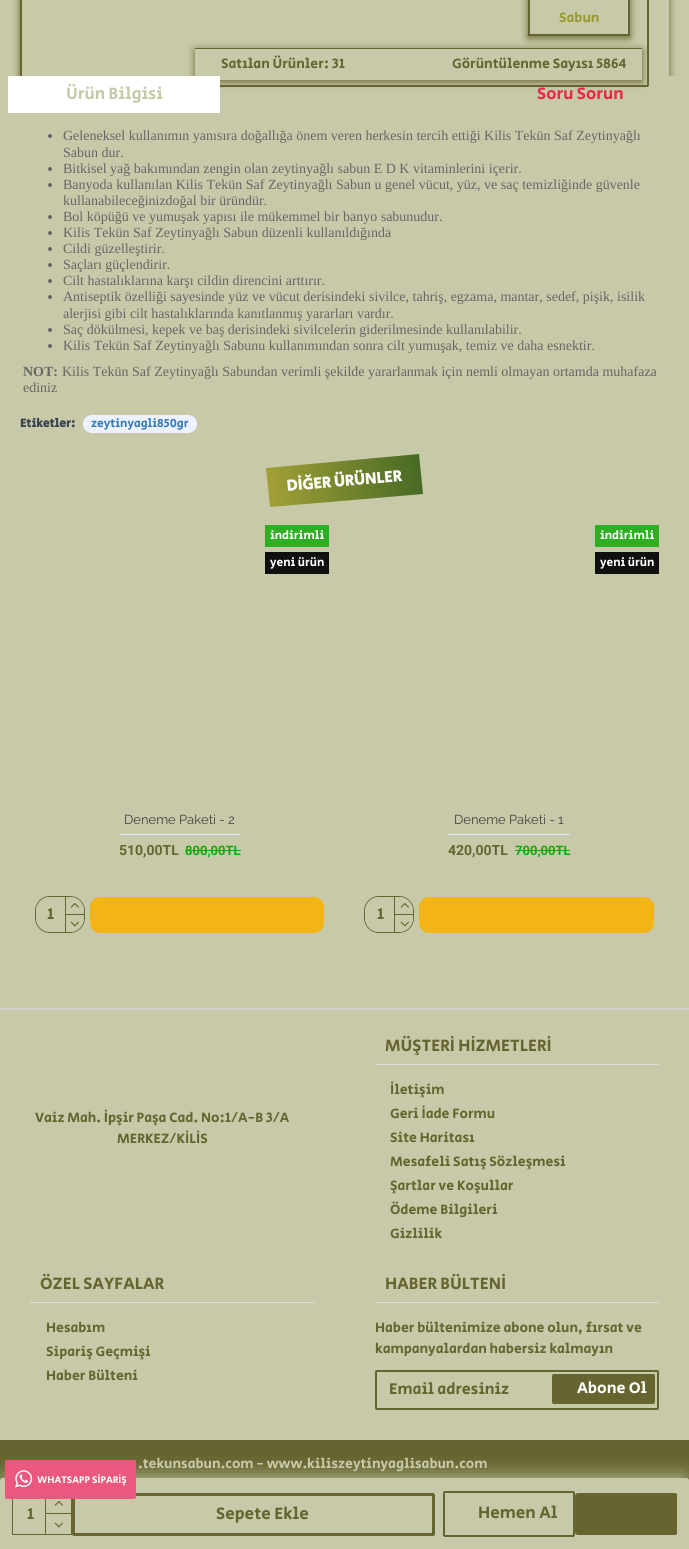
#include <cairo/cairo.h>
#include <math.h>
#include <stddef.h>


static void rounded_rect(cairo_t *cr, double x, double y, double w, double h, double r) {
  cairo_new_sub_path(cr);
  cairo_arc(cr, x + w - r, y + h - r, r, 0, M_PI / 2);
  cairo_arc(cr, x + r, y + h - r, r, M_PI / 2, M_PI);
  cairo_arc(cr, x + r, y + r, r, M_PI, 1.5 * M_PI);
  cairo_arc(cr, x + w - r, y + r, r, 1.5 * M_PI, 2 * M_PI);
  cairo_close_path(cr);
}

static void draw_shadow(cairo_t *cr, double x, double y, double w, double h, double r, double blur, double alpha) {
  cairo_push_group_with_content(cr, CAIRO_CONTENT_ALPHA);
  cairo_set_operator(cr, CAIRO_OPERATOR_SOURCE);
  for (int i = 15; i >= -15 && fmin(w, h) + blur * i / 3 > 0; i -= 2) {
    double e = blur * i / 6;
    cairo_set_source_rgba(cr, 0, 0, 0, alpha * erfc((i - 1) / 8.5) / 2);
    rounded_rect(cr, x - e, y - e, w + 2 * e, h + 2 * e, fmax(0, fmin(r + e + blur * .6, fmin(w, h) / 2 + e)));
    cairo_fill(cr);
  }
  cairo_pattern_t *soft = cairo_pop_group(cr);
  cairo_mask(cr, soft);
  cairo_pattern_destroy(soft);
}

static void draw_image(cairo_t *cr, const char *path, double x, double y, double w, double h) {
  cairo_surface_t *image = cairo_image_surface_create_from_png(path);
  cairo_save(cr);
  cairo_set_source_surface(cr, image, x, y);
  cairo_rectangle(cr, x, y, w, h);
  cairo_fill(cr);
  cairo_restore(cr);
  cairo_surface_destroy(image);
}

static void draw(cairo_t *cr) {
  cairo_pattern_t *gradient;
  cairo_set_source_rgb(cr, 200 / 255.0, 201 / 255.0, 168 / 255.0);
  cairo_paint(cr);
  cairo_save(cr);
  cairo_set_fill_rule(cr, CAIRO_FILL_RULE_EVEN_ODD);
  cairo_new_path(cr);
  cairo_move_to(cr, 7, 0);
  cairo_line_to(cr, 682, 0);
  cairo_line_to(cr, 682, 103);
  cairo_line_to(cr, 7, 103);
  cairo_close_path(cr);
  cairo_move_to(cr, 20, -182);
  cairo_line_to(cr, 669, -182);
  cairo_line_to(cr, 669, 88);
  cairo_line_to(cr, 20, 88);
  cairo_close_path(cr);
  cairo_clip(cr);
  cairo_set_source_rgb(cr, 102 / 255.0, 101 / 255.0, 48 / 255.0);
  draw_shadow(cr, 20, -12, 649, 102, 0, 4, 1);
  cairo_restore(cr);
  cairo_set_source_rgb(cr, 200 / 255.0, 201 / 255.0, 168 / 255.0);
  cairo_rectangle(cr, 12, 76, 665, 22);
  cairo_fill(cr);
  rounded_rect(cr, 21, -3, 627, 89, 1);
  cairo_set_source_rgb(cr, 102 / 255.0, 101 / 255.0, 48 / 255.0);
  cairo_stroke(cr);
  cairo_save(cr);
  cairo_set_fill_rule(cr, CAIRO_FILL_RULE_EVEN_ODD);
  cairo_new_path(cr);
  cairo_move_to(cr, 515, 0);
  cairo_line_to(cr, 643, 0);
  cairo_line_to(cr, 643, 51);
  cairo_line_to(cr, 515, 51);
  cairo_close_path(cr);
  cairo_move_to(cr, 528, -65);
  cairo_line_to(cr, 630, -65);
  cairo_line_to(cr, 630, 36);
  cairo_line_to(cr, 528, 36);
  cairo_close_path(cr);
  cairo_clip(cr);
  cairo_set_source_rgb(cr, 102 / 255.0, 101 / 255.0, 48 / 255.0);
  draw_shadow(cr, 528, -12, 102, 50, 0, 4, 1);
  cairo_restore(cr);
  cairo_rectangle(cr, 529, -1, 100, 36);
  cairo_stroke(cr);
  cairo_save(cr);
  cairo_set_fill_rule(cr, CAIRO_FILL_RULE_EVEN_ODD);
  cairo_new_path(cr);
  cairo_move_to(cr, 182, 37);
  cairo_line_to(cr, 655, 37);
  cairo_line_to(cr, 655, 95);
  cairo_line_to(cr, 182, 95);
  cairo_close_path(cr);
  cairo_move_to(cr, 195, 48);
  cairo_line_to(cr, 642, 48);
  cairo_line_to(cr, 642, 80);
  cairo_line_to(cr, 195, 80);
  cairo_close_path(cr);
  cairo_clip(cr);
  cairo_set_source_rgb(cr, 102 / 255.0, 101 / 255.0, 48 / 255.0);
  draw_shadow(cr, 195, 50, 447, 32, 0, 4, 1);
  cairo_restore(cr);
  cairo_rectangle(cr, 195, 48, 447, 1);
  cairo_fill(cr);
  cairo_rectangle(cr, 0, 1440, 689, 40);
  cairo_fill(cr);
  cairo_set_source_rgb(cr, 200 / 255.0, 201 / 255.0, 168 / 255.0);
  draw_shadow(cr, 5, 1478, 679, 61, 0, 10, 1);
  cairo_set_source_rgb(cr, 200 / 255.0, 201 / 255.0, 168 / 255.0);
  cairo_new_path(cr);
  cairo_move_to(cr, 2, 1479);
  cairo_line_to(cr, 687, 1479);
  cairo_curve_to(cr, 688, 1479, 689, 1479, 689, 1480);
  cairo_line_to(cr, 689, 1547);
  cairo_curve_to(cr, 689, 1548, 688, 1549, 687, 1549);
  cairo_line_to(cr, 2, 1549);
  cairo_curve_to(cr, 1, 1549, 0, 1548, 0, 1547);
  cairo_line_to(cr, 0, 1480);
  cairo_curve_to(cr, 0, 1479, 1, 1479, 2, 1479);
  cairo_close_path(cr);
  cairo_fill(cr);
  cairo_rectangle(cr, 1, 1478, 687, 1);
  cairo_fill(cr);
  cairo_rectangle(cr, 12.5, 1493.5, 59, 41);
  cairo_set_source_rgb(cr, 102 / 255.0, 101 / 255.0, 48 / 255.0);
  cairo_set_line_width(cr, 1);
  cairo_stroke(cr);
  cairo_rectangle(cr, 45, 1494, 1, 40);
  cairo_fill(cr);
  cairo_rectangle(cr, 46, 1513, 25, 1);
  cairo_fill(cr);
  draw_image(cr, "images/1.png", 54, 1501, 9, 5);
  draw_image(cr, "images/2.png", 54, 1522, 9, 6);
  rounded_rect(cr, 73.5, 1494.5, 360, 40, 0.5);
  cairo_set_line_width(cr, 3);
  cairo_stroke(cr);
  rounded_rect(cr, 444, 1492, 130, 44, 1);
  cairo_set_line_width(cr, 2);
  cairo_stroke(cr);
  rounded_rect(cr, 575, 1493, 102, 42, 3);
  cairo_fill(cr);
  rounded_rect(cr, 634, 1493, 43, 42, 2);
  cairo_fill(cr);
  cairo_set_source_rgb(cr, 1, 1, 1);
  cairo_rectangle(cr, 8, 76, 212, 37);
  cairo_fill(cr);
  cairo_set_source_rgb(cr, 102 / 255.0, 102 / 255.0, 102 / 255.0);
  cairo_arc(cr, 50, 136, 2, 0, 2 * M_PI);
  cairo_fill(cr);
  cairo_arc(cr, 50, 169, 2, 0, 2 * M_PI);
  cairo_fill(cr);
  cairo_arc(cr, 50, 185, 2, 0, 2 * M_PI);
  cairo_fill(cr);
  cairo_arc(cr, 50, 217, 2, 0, 2 * M_PI);
  cairo_fill(cr);
  cairo_arc(cr, 50, 233, 2, 0, 2 * M_PI);
  cairo_fill(cr);
  cairo_arc(cr, 50, 249, 2, 0, 2 * M_PI);
  cairo_fill(cr);
  cairo_arc(cr, 50, 265, 2, 0, 2 * M_PI);
  cairo_fill(cr);
  cairo_arc(cr, 50, 281, 2, 0, 2 * M_PI);
  cairo_fill(cr);
  cairo_arc(cr, 50, 297, 2, 0, 2 * M_PI);
  cairo_fill(cr);
  cairo_arc(cr, 50, 330, 2, 0, 2 * M_PI);
  cairo_fill(cr);
  cairo_arc(cr, 50, 346, 2, 0, 2 * M_PI);
  cairo_fill(cr);
  cairo_set_source_rgb(cr, 237 / 255.0, 242 / 255.0, 254 / 255.0);
  rounded_rect(cr, 83, 415, 114, 18, 9);
  cairo_fill(cr);
  gradient = cairo_pattern_create_linear(268, 487, 421, 474);
  cairo_pattern_add_color_stop_rgba(gradient, 0, 162 / 255.0, 160 / 255.0, 54 / 255.0, 1);
  cairo_pattern_add_color_stop_rgba(gradient, 1, 71 / 255.0, 106 / 255.0, 37 / 255.0, 1);
  cairo_set_source(cr, gradient);
  cairo_pattern_destroy(gradient);
  cairo_new_path(cr);
  cairo_move_to(cr, 266, 468);
  cairo_line_to(cr, 419, 454);
  cairo_line_to(cr, 423, 494);
  cairo_line_to(cr, 270, 507);
  cairo_close_path(cr);
  cairo_fill(cr);
  cairo_set_source_rgb(cr, 46 / 255.0, 175 / 255.0, 35 / 255.0);
  cairo_rectangle(cr, 265, 525, 64, 22);
  cairo_fill(cr);
  cairo_set_source_rgb(cr, 15 / 255.0, 15 / 255.0, 15 / 255.0);
  cairo_rectangle(cr, 265, 552, 64, 22);
  cairo_fill(cr);
  cairo_set_source_rgb(cr, 223 / 255.0, 231 / 255.0, 247 / 255.0);
  cairo_rectangle(cr, 119, 834, 122, 1);
  cairo_fill(cr);
  cairo_set_source_rgb(cr, 19 / 255.0, 169 / 255.0, 12 / 255.0);
  cairo_rectangle(cr, 185, 850, 56, 1);
  cairo_fill(cr);
  rounded_rect(cr, 35.5, 896.5, 49, 36, 14.5);
  cairo_set_source_rgb(cr, 102 / 255.0, 101 / 255.0, 48 / 255.0);
  cairo_set_line_width(cr, 1);
  cairo_stroke(cr);
  cairo_set_source_rgb(cr, 200 / 255.0, 201 / 255.0, 168 / 255.0);
  rounded_rect(cr, 36, 897, 48, 35, 14);
  cairo_fill(cr);
  cairo_set_source_rgb(cr, 102 / 255.0, 101 / 255.0, 48 / 255.0);
  cairo_rectangle(cr, 65, 897, 1, 35);
  cairo_fill(cr);
  cairo_set_source_rgb(cr, 200 / 255.0, 201 / 255.0, 168 / 255.0);
  cairo_new_path(cr);
  cairo_move_to(cr, 66, 897);
  cairo_line_to(cr, 70, 897);
  cairo_curve_to(cr, 77.5, 897, 84, 903.5, 84, 911);
  cairo_line_to(cr, 84, 914);
  cairo_line_to(cr, 66, 914);
  cairo_close_path(cr);
  cairo_fill(cr);
  cairo_set_source_rgb(cr, 102 / 255.0, 101 / 255.0, 48 / 255.0);
  cairo_rectangle(cr, 66, 914, 18, 1);
  cairo_fill(cr);
  draw_image(cr, "images/1.png", 70, 903, 9, 5);
  cairo_set_source_rgb(cr, 200 / 255.0, 201 / 255.0, 168 / 255.0);
  cairo_new_path(cr);
  cairo_move_to(cr, 66, 915);
  cairo_line_to(cr, 84, 915);
  cairo_line_to(cr, 84, 918);
  cairo_curve_to(cr, 84, 925.5, 77.5, 932, 70, 932);
  cairo_line_to(cr, 66, 932);
  cairo_close_path(cr);
  cairo_fill(cr);
  draw_image(cr, "images/2.png", 70, 921, 9, 6);
  cairo_set_source_rgb(cr, 242 / 255.0, 180 / 255.0, 22 / 255.0);
  rounded_rect(cr, 90, 897, 234, 36, 10);
  cairo_fill(cr);
  cairo_set_source_rgb(cr, 46 / 255.0, 175 / 255.0, 35 / 255.0);
  cairo_rectangle(cr, 595, 525, 64, 22);
  cairo_fill(cr);
  cairo_set_source_rgb(cr, 15 / 255.0, 15 / 255.0, 15 / 255.0);
  cairo_rectangle(cr, 595, 552, 64, 22);
  cairo_fill(cr);
  cairo_set_source_rgb(cr, 223 / 255.0, 231 / 255.0, 247 / 255.0);
  cairo_rectangle(cr, 448, 834, 122, 1);
  cairo_fill(cr);
  cairo_set_source_rgb(cr, 19 / 255.0, 169 / 255.0, 12 / 255.0);
  cairo_rectangle(cr, 515, 850, 55, 1);
  cairo_fill(cr);
  rounded_rect(cr, 364.5, 896.5, 49, 36, 14.5);
  cairo_set_source_rgb(cr, 102 / 255.0, 101 / 255.0, 48 / 255.0);
  cairo_stroke(cr);
  cairo_set_source_rgb(cr, 200 / 255.0, 201 / 255.0, 168 / 255.0);
  rounded_rect(cr, 365, 897, 48, 35, 14);
  cairo_fill(cr);
  cairo_set_source_rgb(cr, 102 / 255.0, 101 / 255.0, 48 / 255.0);
  cairo_rectangle(cr, 394, 897, 1, 35);
  cairo_fill(cr);
  cairo_set_source_rgb(cr, 200 / 255.0, 201 / 255.0, 168 / 255.0);
  cairo_new_path(cr);
  cairo_move_to(cr, 395, 897);
  cairo_line_to(cr, 399, 897);
  cairo_curve_to(cr, 406.5, 897, 413, 903.5, 413, 911);
  cairo_line_to(cr, 413, 914);
  cairo_line_to(cr, 395, 914);
  cairo_close_path(cr);
  cairo_fill(cr);
  cairo_set_source_rgb(cr, 102 / 255.0, 101 / 255.0, 48 / 255.0);
  cairo_rectangle(cr, 395, 914, 18, 1);
  cairo_fill(cr);
  draw_image(cr, "images/1.png", 400, 903, 9, 5);
  cairo_set_source_rgb(cr, 200 / 255.0, 201 / 255.0, 168 / 255.0);
  cairo_new_path(cr);
  cairo_move_to(cr, 395, 915);
  cairo_line_to(cr, 413, 915);
  cairo_line_to(cr, 413, 918);
  cairo_curve_to(cr, 413, 925.5, 406.5, 932, 399, 932);
  cairo_line_to(cr, 395, 932);
  cairo_close_path(cr);
  cairo_fill(cr);
  draw_image(cr, "images/2.png", 400, 921, 9, 6);
  cairo_set_source_rgb(cr, 242 / 255.0, 180 / 255.0, 22 / 255.0);
  rounded_rect(cr, 419, 897, 235, 36, 10);
  cairo_fill(cr);
  cairo_set_source_rgb(cr, 208 / 255.0, 208 / 255.0, 208 / 255.0);
  cairo_rectangle(cr, 0, 1008, 689, 2);
  cairo_fill(cr);
  cairo_set_source_rgb(cr, 221 / 255.0, 221 / 255.0, 221 / 255.0);
  cairo_rectangle(cr, 375, 1064, 284, 1);
  cairo_fill(cr);
  cairo_rectangle(cr, 30, 1302, 285, 1);
  cairo_fill(cr);
  cairo_rectangle(cr, 375, 1302, 284, 1);
  cairo_fill(cr);
  rounded_rect(cr, 376, 1371, 282, 38, 1);
  cairo_set_source_rgb(cr, 102 / 255.0, 101 / 255.0, 48 / 255.0);
  cairo_set_line_width(cr, 2);
  cairo_stroke(cr);
  rounded_rect(cr, 552, 1374, 103, 30, 2);
  cairo_fill(cr);
  cairo_set_source_rgb(cr, 235 / 255.0, 88 / 255.0, 127 / 255.0);
  rounded_rect(cr, 5, 1460, 131, 39, 2);
  cairo_fill(cr);
  draw_image(cr, "images/3.png", 15, 1470, 18, 18);
  cairo_select_font_face(cr, "Secular One", CAIRO_FONT_SLANT_NORMAL, CAIRO_FONT_WEIGHT_NORMAL);
  cairo_set_font_size(cr, 14);
  cairo_set_source_rgb(cr, 154 / 255.0, 152 / 255.0, 50 / 255.0);
  cairo_move_to(cr, 559, 22);
  cairo_show_text(cr, "Sabun");
  cairo_set_source_rgb(cr, 102 / 255.0, 101 / 255.0, 48 / 255.0);
  cairo_move_to(cr, 221, 68);
  cairo_show_text(cr, "Satılan Ürünler: 31");
  cairo_move_to(cr, 452, 68);
  cairo_show_text(cr, "Görüntülenme Sayısı 5864");
  cairo_set_font_size(cr, 16);
  cairo_move_to(cr, 27, 1519);
  cairo_show_text(cr, "1");
  cairo_set_font_size(cr, 17);
  cairo_move_to(cr, 216, 1519);
  cairo_show_text(cr, "Sepete Ekle");
  cairo_move_to(cr, 478, 1518);
  cairo_show_text(cr, "Hemen Al");
  cairo_set_source_rgb(cr, 200 / 255.0, 201 / 255.0, 168 / 255.0);
  cairo_move_to(cr, 66, 99);
  cairo_show_text(cr, "Ürün Bilgisi");
  cairo_set_source_rgb(cr, 231 / 255.0, 40 / 255.0, 77 / 255.0);
  cairo_move_to(cr, 537, 99);
  cairo_show_text(cr, "Soru Sorun");
  cairo_select_font_face(cr, "Liberation Serif", CAIRO_FONT_SLANT_NORMAL, CAIRO_FONT_WEIGHT_NORMAL);
  cairo_set_font_size(cr, 14);
  cairo_set_source_rgb(cr, 102 / 255.0, 102 / 255.0, 102 / 255.0);
  cairo_move_to(cr, 63, 140);
  cairo_show_text(cr, "Geleneksel kullanımın yanısıra doğallığa önem veren herkesin tercih ettiği Kilis Tekün Saf Zeytinyağlı");
  cairo_move_to(cr, 63, 157);
  cairo_show_text(cr, "Sabun dur.");
  cairo_move_to(cr, 63, 173);
  cairo_show_text(cr, "Bitkisel yağ bakımından zengin olan zeytinyağlı sabun E D K vitaminlerini içerir.");
  cairo_move_to(cr, 63, 189);
  cairo_show_text(cr, "Banyoda kullanılan Kilis Tekün Saf Zeytinyağlı Sabun u genel vücut, yüz, ve saç temizliğinde güvenle");
  cairo_move_to(cr, 63, 205);
  cairo_show_text(cr, "kullanabileceğinizdoğal bir üründür.");
  cairo_move_to(cr, 63, 221);
  cairo_show_text(cr, "Bol köpüğü ve yumuşak yapısı ile mükemmel bir banyo sabunudur.");
  cairo_move_to(cr, 63, 237);
  cairo_show_text(cr, "Kilis Tekün Saf Zeytinyağlı Sabun düzenli kullanıldığında");
  cairo_move_to(cr, 63, 253);
  cairo_show_text(cr, "Cildi güzelleştirir.");
  cairo_move_to(cr, 63, 269);
  cairo_show_text(cr, "Saçları güçlendirir.");
  cairo_move_to(cr, 63, 285);
  cairo_show_text(cr, "Cilt hastalıklarına karşı cildin direncini arttırır.");
  cairo_move_to(cr, 63, 301);
  cairo_show_text(cr, "Antiseptik özelliği sayesinde yüz ve vücut derisindeki sivilce, tahriş, egzama, mantar, sedef, pişik, isilik");
  cairo_move_to(cr, 63, 318);
  cairo_show_text(cr, "alerjisi gibi cilt hastalıklarında kanıtlanmış yararları vardır.");
  cairo_move_to(cr, 63, 334);
  cairo_show_text(cr, "Saç dökülmesi, kepek ve baş derisindeki sivilcelerin giderilmesinde kullanılabilir.");
  cairo_move_to(cr, 63, 350);
  cairo_show_text(cr, "Kilis Tekün Saf Zeytinyağlı Sabunu kullanımından sonra cilt yumuşak, temiz ve daha esnektir.");
  cairo_select_font_face(cr, "Liberation Serif", CAIRO_FONT_SLANT_NORMAL, CAIRO_FONT_WEIGHT_BOLD);
  cairo_move_to(cr, 23, 376);
  cairo_show_text(cr, "NOT:");
  cairo_select_font_face(cr, "Liberation Serif", CAIRO_FONT_SLANT_NORMAL, CAIRO_FONT_WEIGHT_NORMAL);
  cairo_move_to(cr, 62, 376);
  cairo_show_text(cr, "Kilis Tekün Saf Zeytinyağlı Sabundan verimli şekilde yararlanmak için nemli olmayan ortamda muhafaza");
  cairo_move_to(cr, 23, 392);
  cairo_show_text(cr, "ediniz");
  cairo_select_font_face(cr, "Secular One", CAIRO_FONT_SLANT_NORMAL, CAIRO_FONT_WEIGHT_BOLD);
  cairo_set_font_size(cr, 12);
  cairo_set_source_rgb(cr, 56 / 255.0, 68 / 255.0, 79 / 255.0);
  cairo_move_to(cr, 20, 427);
  cairo_show_text(cr, "Etiketler:");
  cairo_select_font_face(cr, "Secular One", CAIRO_FONT_SLANT_NORMAL, CAIRO_FONT_WEIGHT_NORMAL);
  cairo_set_source_rgb(cr, 51 / 255.0, 122 / 255.0, 183 / 255.0);
  cairo_move_to(cr, 91, 427);
  cairo_show_text(cr, "zeytinyagli850gr");
  cairo_select_font_face(cr, "Secular One", CAIRO_FONT_SLANT_NORMAL, CAIRO_FONT_WEIGHT_BOLD);
  cairo_set_font_size(cr, 16);
  cairo_set_source_rgb(cr, 1, 1, 1);
  cairo_save(cr);
  cairo_translate(cr, 287, 491);
  cairo_rotate(cr, -5 * M_PI / 180);
  cairo_move_to(cr, 0, 0);
  cairo_show_text(cr, "DİĞER ÜRÜNLER");
  cairo_restore(cr);
  cairo_select_font_face(cr, "Secular One", CAIRO_FONT_SLANT_NORMAL, CAIRO_FONT_WEIGHT_NORMAL);
  cairo_set_font_size(cr, 12);
  cairo_move_to(cr, 270, 539);
  cairo_show_text(cr, "indirimli");
  cairo_move_to(cr, 270, 566);
  cairo_show_text(cr, "yeni ürün");
  cairo_select_font_face(cr, "Raleway", CAIRO_FONT_SLANT_NORMAL, CAIRO_FONT_WEIGHT_NORMAL);
  cairo_set_font_size(cr, 13);
  cairo_set_source_rgb(cr, 68 / 255.0, 68 / 255.0, 68 / 255.0);
  cairo_move_to(cr, 124, 824);
  cairo_show_text(cr, "Deneme Paketi - 2");
  cairo_select_font_face(cr, "Roboto", CAIRO_FONT_SLANT_NORMAL, CAIRO_FONT_WEIGHT_BOLD);
  cairo_set_font_size(cr, 14);
  cairo_set_source_rgb(cr, 102 / 255.0, 101 / 255.0, 48 / 255.0);
  cairo_move_to(cr, 119, 855);
  cairo_show_text(cr, "510,00TL");
  cairo_set_font_size(cr, 13);
  cairo_set_source_rgb(cr, 19 / 255.0, 169 / 255.0, 12 / 255.0);
  cairo_move_to(cr, 185, 855);
  cairo_show_text(cr, "800,00TL");
  cairo_select_font_face(cr, "Secular One", CAIRO_FONT_SLANT_NORMAL, CAIRO_FONT_WEIGHT_NORMAL);
  cairo_set_font_size(cr, 16);
  cairo_set_source_rgb(cr, 102 / 255.0, 101 / 255.0, 48 / 255.0);
  cairo_move_to(cr, 47, 919);
  cairo_show_text(cr, "1");
  cairo_set_font_size(cr, 12);
  cairo_set_source_rgb(cr, 1, 1, 1);
  cairo_move_to(cr, 600, 539);
  cairo_show_text(cr, "indirimli");
  cairo_move_to(cr, 600, 566);
  cairo_show_text(cr, "yeni ürün");
  cairo_select_font_face(cr, "Raleway", CAIRO_FONT_SLANT_NORMAL, CAIRO_FONT_WEIGHT_NORMAL);
  cairo_set_font_size(cr, 13);
  cairo_set_source_rgb(cr, 68 / 255.0, 68 / 255.0, 68 / 255.0);
  cairo_move_to(cr, 454, 824);
  cairo_show_text(cr, "Deneme Paketi - 1");
  cairo_select_font_face(cr, "Roboto", CAIRO_FONT_SLANT_NORMAL, CAIRO_FONT_WEIGHT_BOLD);
  cairo_set_font_size(cr, 14);
  cairo_set_source_rgb(cr, 102 / 255.0, 101 / 255.0, 48 / 255.0);
  cairo_move_to(cr, 448, 855);
  cairo_show_text(cr, "420,00TL");
  cairo_set_font_size(cr, 13);
  cairo_set_source_rgb(cr, 19 / 255.0, 169 / 255.0, 12 / 255.0);
  cairo_move_to(cr, 515, 855);
  cairo_show_text(cr, "700,00TL");
  cairo_select_font_face(cr, "Secular One", CAIRO_FONT_SLANT_NORMAL, CAIRO_FONT_WEIGHT_NORMAL);
  cairo_set_font_size(cr, 16);
  cairo_set_source_rgb(cr, 102 / 255.0, 101 / 255.0, 48 / 255.0);
  cairo_move_to(cr, 377, 919);
  cairo_show_text(cr, "1");
  cairo_set_font_size(cr, 14);
  cairo_move_to(cr, 35, 1122);
  cairo_show_text(cr, "Vaiz Mah. İpşir Paşa Cad. No:1/A-B 3/A");
  cairo_move_to(cr, 117, 1143);
  cairo_show_text(cr, "MERKEZ/KİLİS");
  cairo_set_font_size(cr, 17);
  cairo_move_to(cr, 385, 1051);
  cairo_show_text(cr, "MÜŞTERİ HİZMETLERİ");
  cairo_set_font_size(cr, 14);
  cairo_move_to(cr, 390, 1094);
  cairo_show_text(cr, "İletişim");
  cairo_move_to(cr, 390, 1118);
  cairo_show_text(cr, "Geri İade Formu");
  cairo_move_to(cr, 390, 1142);
  cairo_show_text(cr, "Site Haritası");
  cairo_move_to(cr, 390, 1166);
  cairo_show_text(cr, "Mesafeli Satış Sözleşmesi");
  cairo_move_to(cr, 390, 1190);
  cairo_show_text(cr, "Şartlar ve Koşullar");
  cairo_move_to(cr, 390, 1214);
  cairo_show_text(cr, "Ödeme Bilgileri");
  cairo_move_to(cr, 390, 1238);
  cairo_show_text(cr, "Gizlilik");
  cairo_set_font_size(cr, 17);
  cairo_move_to(cr, 40, 1289);
  cairo_show_text(cr, "ÖZEL SAYFALAR");
  cairo_set_font_size(cr, 14);
  cairo_move_to(cr, 46, 1332);
  cairo_show_text(cr, "Hesabım");
  cairo_move_to(cr, 46, 1356);
  cairo_show_text(cr, "Sipariş Geçmişi");
  cairo_move_to(cr, 46, 1380);
  cairo_show_text(cr, "Haber Bülteni");
  cairo_set_font_size(cr, 17);
  cairo_move_to(cr, 385, 1289);
  cairo_show_text(cr, "HABER BÜLTENİ");
  cairo_set_font_size(cr, 14);
  cairo_move_to(cr, 375, 1332);
  cairo_show_text(cr, "Haber bültenimize abone olun, fırsat ve");
  cairo_move_to(cr, 375, 1353);
  cairo_show_text(cr, "kampanyalardan habersiz kalmayın");
  cairo_set_font_size(cr, 16);
  cairo_move_to(cr, 389, 1394);
  cairo_show_text(cr, "Email adresiniz");
  cairo_set_source_rgb(cr, 1, 1, 1);
  cairo_move_to(cr, 577, 1393);
  cairo_show_text(cr, "Abone Ol");
  cairo_set_font_size(cr, 14);
  cairo_set_source_rgb(cr, 200 / 255.0, 201 / 255.0, 168 / 255.0);
  cairo_move_to(cr, 138, 1468);
  cairo_show_text(cr, ".tekunsabun.com - www.kiliszeytinyaglisabun.com");
  cairo_set_font_size(cr, 10);
  cairo_set_source_rgb(cr, 1, 1, 1);
  cairo_move_to(cr, 37, 1483);
  cairo_show_text(cr, "WHATSAPP SİPARİŞ");
}

int main(void) {
  cairo_surface_t *surface = cairo_image_surface_create(CAIRO_FORMAT_RGB24, 689, 1549);
  cairo_t *cr = cairo_create(surface);
  cairo_font_options_t *options = cairo_font_options_create();
  cairo_font_options_set_hint_metrics(options, CAIRO_HINT_METRICS_OFF);
  cairo_font_options_set_hint_style(options, CAIRO_HINT_STYLE_NONE);
  cairo_set_font_options(cr, options);
  cairo_set_miter_limit(cr, 4);
  draw(cr);
  cairo_surface_write_to_png(surface, "out.png");
  cairo_font_options_destroy(options);
  cairo_destroy(cr);
  cairo_surface_destroy(surface);
  return 0;
}
